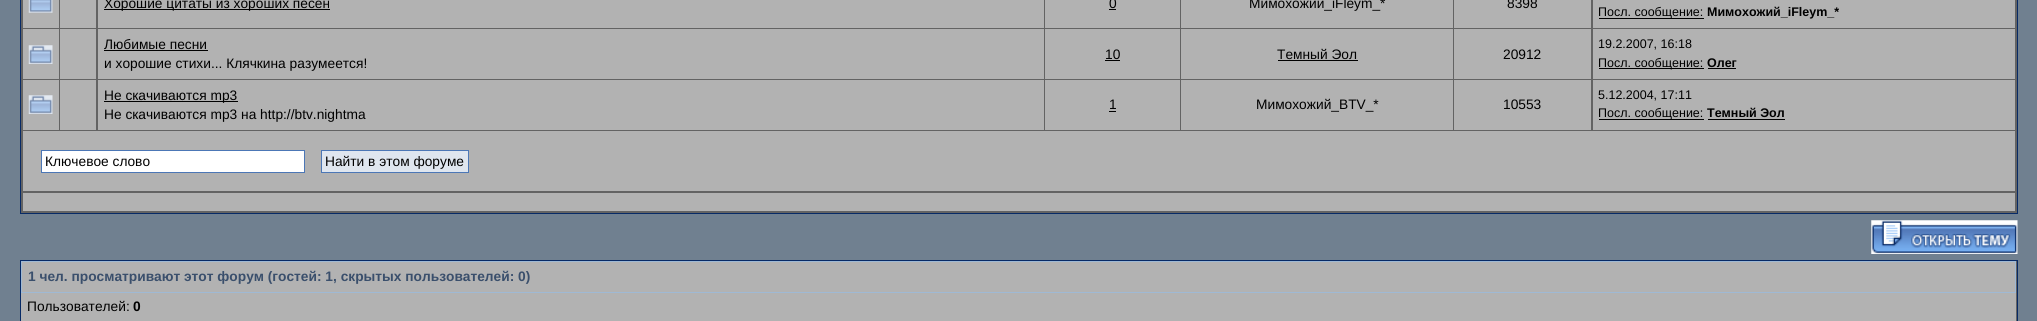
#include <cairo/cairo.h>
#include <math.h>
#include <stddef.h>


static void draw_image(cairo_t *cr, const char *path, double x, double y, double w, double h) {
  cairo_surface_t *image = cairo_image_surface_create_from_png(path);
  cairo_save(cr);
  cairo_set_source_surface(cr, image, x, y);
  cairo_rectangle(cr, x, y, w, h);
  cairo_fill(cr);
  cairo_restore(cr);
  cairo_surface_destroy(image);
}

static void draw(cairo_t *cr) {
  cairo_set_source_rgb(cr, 112 / 255.0, 128 / 255.0, 144 / 255.0);
  cairo_paint(cr);
  cairo_set_source_rgb(cr, 99 / 255.0, 99 / 255.0, 99 / 255.0);
  cairo_rectangle(cr, 20.5, -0.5, 1997, 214);
  cairo_fill_preserve(cr);
  cairo_set_source_rgb(cr, 7 / 255.0, 42 / 255.0, 102 / 255.0);
  cairo_set_line_width(cr, 1);
  cairo_stroke(cr);
  cairo_set_source_rgb(cr, 178 / 255.0, 178 / 255.0, 178 / 255.0);
  cairo_rectangle(cr, 23, 0, 36, 28);
  cairo_fill(cr);
  draw_image(cr, "images/1.png", 28, 0, 25, 13);
  cairo_rectangle(cr, 60, 0, 36, 28);
  cairo_fill(cr);
  cairo_rectangle(cr, 98, 0, 946, 28);
  cairo_fill(cr);
  cairo_set_source_rgb(cr, 0, 0, 0);
  cairo_rectangle(cr, 104, 9, 226, 1);
  cairo_fill(cr);
  cairo_set_source_rgb(cr, 178 / 255.0, 178 / 255.0, 178 / 255.0);
  cairo_rectangle(cr, 1045, 0, 135, 28);
  cairo_fill(cr);
  cairo_set_source_rgb(cr, 0, 0, 0);
  cairo_rectangle(cr, 1109, 9, 7, 1);
  cairo_fill(cr);
  cairo_set_source_rgb(cr, 178 / 255.0, 178 / 255.0, 178 / 255.0);
  cairo_rectangle(cr, 1181, 0, 272, 28);
  cairo_fill(cr);
  cairo_rectangle(cr, 1454, 0, 137, 28);
  cairo_fill(cr);
  cairo_rectangle(cr, 1593, 0, 422, 28);
  cairo_fill(cr);
  cairo_set_source_rgb(cr, 0, 0, 0);
  cairo_rectangle(cr, 1599, 18, 105, 1);
  cairo_fill(cr);
  cairo_set_source_rgb(cr, 178 / 255.0, 178 / 255.0, 178 / 255.0);
  cairo_rectangle(cr, 23, 29, 36, 50);
  cairo_fill(cr);
  draw_image(cr, "images/2.png", 28, 45, 25, 19);
  cairo_rectangle(cr, 60, 29, 36, 50);
  cairo_fill(cr);
  cairo_rectangle(cr, 98, 29, 946, 50);
  cairo_fill(cr);
  cairo_set_source_rgb(cr, 0, 0, 0);
  cairo_rectangle(cr, 104, 50, 104, 1);
  cairo_fill(cr);
  cairo_set_source_rgb(cr, 178 / 255.0, 178 / 255.0, 178 / 255.0);
  cairo_rectangle(cr, 1045, 29, 135, 50);
  cairo_fill(cr);
  cairo_set_source_rgb(cr, 0, 0, 0);
  cairo_rectangle(cr, 1105, 60, 15, 1);
  cairo_fill(cr);
  cairo_set_source_rgb(cr, 178 / 255.0, 178 / 255.0, 178 / 255.0);
  cairo_rectangle(cr, 1181, 29, 272, 50);
  cairo_fill(cr);
  cairo_set_source_rgb(cr, 0, 0, 0);
  cairo_rectangle(cr, 1278, 60, 80, 1);
  cairo_fill(cr);
  cairo_set_source_rgb(cr, 178 / 255.0, 178 / 255.0, 178 / 255.0);
  cairo_rectangle(cr, 1454, 29, 137, 50);
  cairo_fill(cr);
  cairo_rectangle(cr, 1593, 29, 422, 50);
  cairo_fill(cr);
  cairo_set_source_rgb(cr, 0, 0, 0);
  cairo_rectangle(cr, 1599, 68, 105, 1);
  cairo_fill(cr);
  cairo_rectangle(cr, 1708, 68, 28, 1);
  cairo_fill(cr);
  cairo_set_source_rgb(cr, 178 / 255.0, 178 / 255.0, 178 / 255.0);
  cairo_rectangle(cr, 23, 80, 36, 50);
  cairo_fill(cr);
  draw_image(cr, "images/2.png", 28, 95, 25, 19);
  cairo_rectangle(cr, 60, 80, 36, 50);
  cairo_fill(cr);
  cairo_rectangle(cr, 98, 80, 946, 50);
  cairo_fill(cr);
  cairo_set_source_rgb(cr, 0, 0, 0);
  cairo_rectangle(cr, 104, 101, 134, 1);
  cairo_fill(cr);
  cairo_set_source_rgb(cr, 178 / 255.0, 178 / 255.0, 178 / 255.0);
  cairo_rectangle(cr, 1045, 80, 135, 50);
  cairo_fill(cr);
  cairo_set_source_rgb(cr, 0, 0, 0);
  cairo_rectangle(cr, 1109, 111, 7, 1);
  cairo_fill(cr);
  cairo_set_source_rgb(cr, 178 / 255.0, 178 / 255.0, 178 / 255.0);
  cairo_rectangle(cr, 1181, 80, 272, 50);
  cairo_fill(cr);
  cairo_rectangle(cr, 1454, 80, 137, 50);
  cairo_fill(cr);
  cairo_rectangle(cr, 1593, 80, 422, 50);
  cairo_fill(cr);
  cairo_set_source_rgb(cr, 0, 0, 0);
  cairo_rectangle(cr, 1599, 119, 105, 1);
  cairo_fill(cr);
  cairo_rectangle(cr, 1708, 119, 77, 1);
  cairo_fill(cr);
  cairo_set_source_rgb(cr, 178 / 255.0, 178 / 255.0, 178 / 255.0);
  cairo_rectangle(cr, 23, 131, 1992, 60);
  cairo_fill(cr);
  cairo_set_source_rgb(cr, 1, 1, 1);
  cairo_rectangle(cr, 41.5, 150.5, 263, 22);
  cairo_fill_preserve(cr);
  cairo_set_source_rgb(cr, 76 / 255.0, 119 / 255.0, 182 / 255.0);
  cairo_stroke(cr);
  cairo_set_source_rgb(cr, 223 / 255.0, 230 / 255.0, 239 / 255.0);
  cairo_rectangle(cr, 321.5, 150.5, 147, 22);
  cairo_fill_preserve(cr);
  cairo_set_source_rgb(cr, 76 / 255.0, 119 / 255.0, 182 / 255.0);
  cairo_stroke(cr);
  cairo_set_source_rgb(cr, 178 / 255.0, 178 / 255.0, 178 / 255.0);
  cairo_rectangle(cr, 23, 193, 1992, 18);
  cairo_fill(cr);
  draw_image(cr, "images/3.png", 1871, 220, 147, 34);
  cairo_set_source_rgb(cr, 99 / 255.0, 99 / 255.0, 99 / 255.0);
  cairo_rectangle(cr, 2016, 261, 1, 60);
  cairo_fill(cr);
  cairo_rectangle(cr, 20.5, 260.5, 1997, 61);
  cairo_set_source_rgb(cr, 7 / 255.0, 42 / 255.0, 102 / 255.0);
  cairo_stroke(cr);
  cairo_set_source_rgb(cr, 178 / 255.0, 178 / 255.0, 178 / 255.0);
  cairo_rectangle(cr, 21.5, 261.5, 1994, 31);
  cairo_fill_preserve(cr);
  cairo_set_source_rgb(cr, 159 / 255.0, 185 / 255.0, 212 / 255.0);
  cairo_stroke(cr);
  cairo_set_source_rgb(cr, 178 / 255.0, 178 / 255.0, 178 / 255.0);
  cairo_rectangle(cr, 21, 293, 1995, 28);
  cairo_fill(cr);
  cairo_select_font_face(cr, "Liberation Sans", CAIRO_FONT_SLANT_NORMAL, CAIRO_FONT_WEIGHT_NORMAL);
  cairo_set_font_size(cr, 13.75);
  cairo_set_source_rgb(cr, 0, 0, 0);
  cairo_move_to(cr, 104, 8);
  cairo_show_text(cr, "Хорошие цитаты из хороших песен");
  cairo_move_to(cr, 1109, 8);
  cairo_show_text(cr, "0");
  cairo_move_to(cr, 1249, 8);
  cairo_show_text(cr, "Мимохожий_iFleym_*");
  cairo_move_to(cr, 1507, 8);
  cairo_show_text(cr, "8398");
  cairo_set_font_size(cr, 12.5);
  cairo_move_to(cr, 1598, 16);
  cairo_show_text(cr, "Посл. сообщение:");
  cairo_select_font_face(cr, "Liberation Sans", CAIRO_FONT_SLANT_NORMAL, CAIRO_FONT_WEIGHT_BOLD);
  cairo_move_to(cr, 1707, 16);
  cairo_show_text(cr, "Мимохожий_iFleym_*");
  cairo_select_font_face(cr, "Liberation Sans", CAIRO_FONT_SLANT_NORMAL, CAIRO_FONT_WEIGHT_NORMAL);
  cairo_set_font_size(cr, 13.75);
  cairo_move_to(cr, 104, 49);
  cairo_show_text(cr, "Любимые песни");
  cairo_move_to(cr, 104, 68);
  cairo_show_text(cr, "и хорошие стихи... Клячкина разумеется!");
  cairo_move_to(cr, 1105, 59);
  cairo_show_text(cr, "10");
  cairo_move_to(cr, 1277, 59);
  cairo_show_text(cr, "Темный Эол");
  cairo_move_to(cr, 1503, 59);
  cairo_show_text(cr, "20912");
  cairo_set_font_size(cr, 12.5);
  cairo_move_to(cr, 1598, 48);
  cairo_show_text(cr, "19.2.2007, 16:18");
  cairo_move_to(cr, 1598, 67);
  cairo_show_text(cr, "Посл. сообщение:");
  cairo_select_font_face(cr, "Liberation Sans", CAIRO_FONT_SLANT_NORMAL, CAIRO_FONT_WEIGHT_BOLD);
  cairo_move_to(cr, 1707, 67);
  cairo_show_text(cr, "Олег");
  cairo_select_font_face(cr, "Liberation Sans", CAIRO_FONT_SLANT_NORMAL, CAIRO_FONT_WEIGHT_NORMAL);
  cairo_set_font_size(cr, 13.75);
  cairo_move_to(cr, 104, 100);
  cairo_show_text(cr, "Не скачиваются mp3");
  cairo_move_to(cr, 104, 119);
  cairo_show_text(cr, "Не скачиваются mp3 на http://btv.nightma");
  cairo_move_to(cr, 1109, 109);
  cairo_show_text(cr, "1");
  cairo_move_to(cr, 1256, 109);
  cairo_show_text(cr, "Мимохожий_BTV_*");
  cairo_move_to(cr, 1503, 109);
  cairo_show_text(cr, "10553");
  cairo_set_font_size(cr, 12.5);
  cairo_move_to(cr, 1598, 99);
  cairo_show_text(cr, "5.12.2004, 17:11");
  cairo_move_to(cr, 1598, 117);
  cairo_show_text(cr, "Посл. сообщение:");
  cairo_select_font_face(cr, "Liberation Sans", CAIRO_FONT_SLANT_NORMAL, CAIRO_FONT_WEIGHT_BOLD);
  cairo_move_to(cr, 1707, 117);
  cairo_show_text(cr, "Темный Эол");
  cairo_select_font_face(cr, "Liberation Sans", CAIRO_FONT_SLANT_NORMAL, CAIRO_FONT_WEIGHT_NORMAL);
  cairo_set_font_size(cr, 13.75);
  cairo_move_to(cr, 45, 166);
  cairo_show_text(cr, "Ключевое слово");
  cairo_move_to(cr, 325, 166);
  cairo_show_text(cr, "Найти в этом форуме");
  cairo_select_font_face(cr, "Liberation Sans", CAIRO_FONT_SLANT_NORMAL, CAIRO_FONT_WEIGHT_BOLD);
  cairo_set_source_rgb(cr, 58 / 255.0, 79 / 255.0, 108 / 255.0);
  cairo_move_to(cr, 28, 281);
  cairo_show_text(cr, "1 чел. просматривают этот форум (гостей: 1, скрытых пользователей: 0)");
  cairo_select_font_face(cr, "Liberation Sans", CAIRO_FONT_SLANT_NORMAL, CAIRO_FONT_WEIGHT_NORMAL);
  cairo_set_source_rgb(cr, 0, 0, 0);
  cairo_move_to(cr, 27, 311);
  cairo_show_text(cr, "Пользователей:");
  cairo_select_font_face(cr, "Liberation Sans", CAIRO_FONT_SLANT_NORMAL, CAIRO_FONT_WEIGHT_BOLD);
  cairo_move_to(cr, 133, 311);
  cairo_show_text(cr, "0");
}

int main(void) {
  cairo_surface_t *surface = cairo_image_surface_create(CAIRO_FORMAT_RGB24, 2037, 321);
  cairo_t *cr = cairo_create(surface);
  cairo_font_options_t *options = cairo_font_options_create();
  cairo_font_options_set_hint_metrics(options, CAIRO_HINT_METRICS_OFF);
  cairo_font_options_set_hint_style(options, CAIRO_HINT_STYLE_NONE);
  cairo_set_font_options(cr, options);
  cairo_set_miter_limit(cr, 4);
  draw(cr);
  cairo_surface_write_to_png(surface, "out.png");
  cairo_font_options_destroy(options);
  cairo_destroy(cr);
  cairo_surface_destroy(surface);
  return 0;
}
